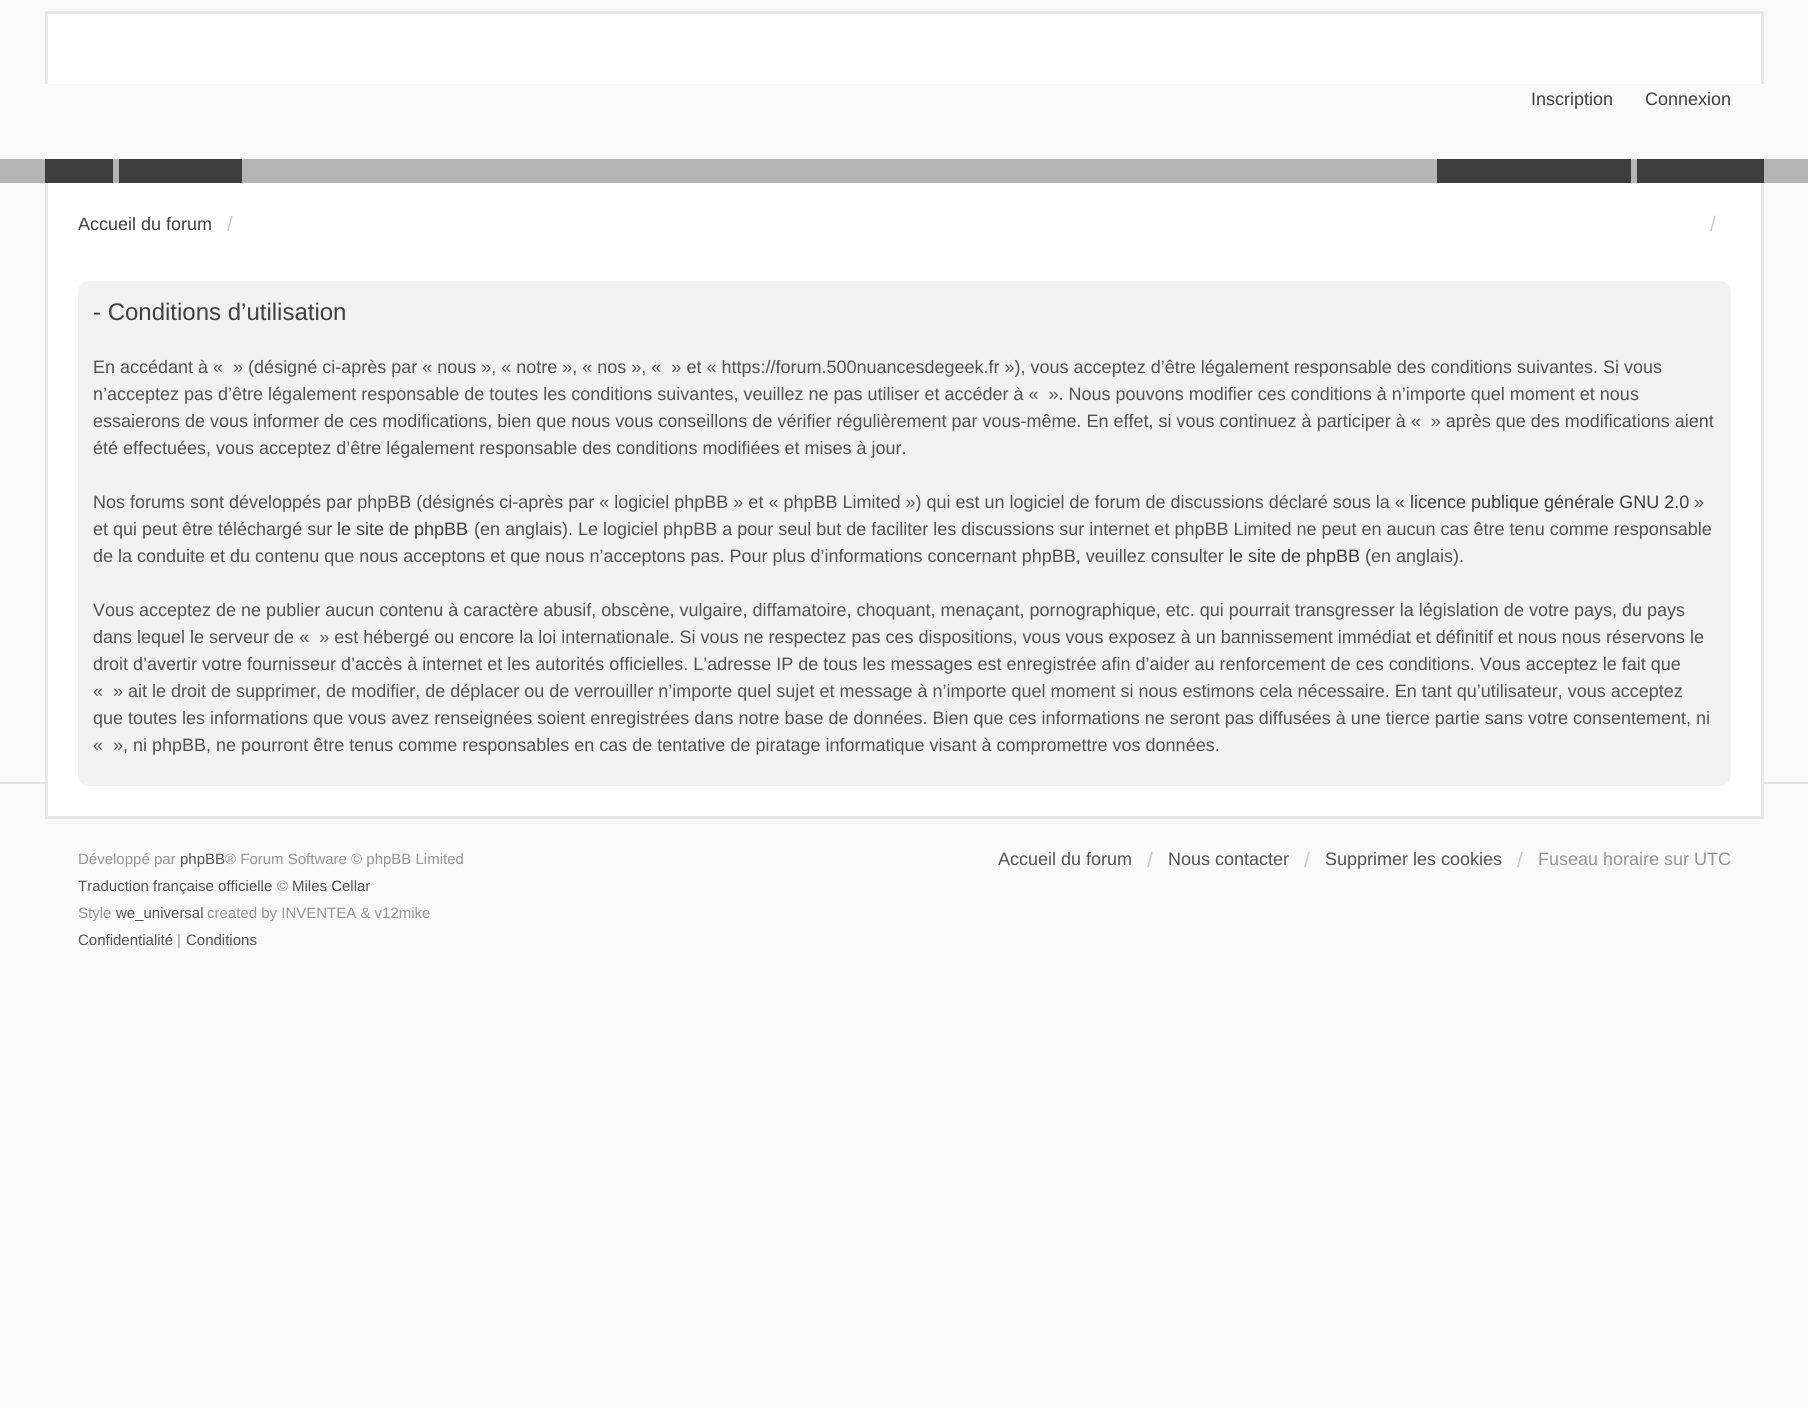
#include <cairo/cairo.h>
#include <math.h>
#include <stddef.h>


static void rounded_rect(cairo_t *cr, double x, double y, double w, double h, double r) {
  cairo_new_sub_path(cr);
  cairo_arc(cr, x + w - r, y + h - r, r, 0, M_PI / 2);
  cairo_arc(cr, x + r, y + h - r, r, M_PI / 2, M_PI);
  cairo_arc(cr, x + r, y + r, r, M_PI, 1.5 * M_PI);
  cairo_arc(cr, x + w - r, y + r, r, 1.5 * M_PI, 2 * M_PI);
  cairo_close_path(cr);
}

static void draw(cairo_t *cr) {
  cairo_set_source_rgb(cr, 249 / 255.0, 249 / 255.0, 249 / 255.0);
  cairo_paint(cr);
  cairo_set_source_rgb(cr, 1, 1, 1);
  cairo_rectangle(cr, 48, 14, 1713, 70);
  cairo_fill(cr);
  cairo_set_source_rgb(cr, 231 / 255.0, 231 / 255.0, 231 / 255.0);
  cairo_rectangle(cr, 45, 11, 1719, 3);
  cairo_fill(cr);
  cairo_rectangle(cr, 1761, 11, 3, 73);
  cairo_fill(cr);
  cairo_rectangle(cr, 45, 11, 3, 73);
  cairo_fill(cr);
  cairo_set_source_rgb(cr, 180 / 255.0, 180 / 255.0, 180 / 255.0);
  cairo_rectangle(cr, 0, 159, 1808, 24);
  cairo_fill(cr);
  cairo_set_source_rgb(cr, 61 / 255.0, 61 / 255.0, 61 / 255.0);
  cairo_rectangle(cr, 45, 159, 68, 24);
  cairo_fill(cr);
  cairo_rectangle(cr, 119, 159, 123, 24);
  cairo_fill(cr);
  cairo_rectangle(cr, 1437, 159, 194, 24);
  cairo_fill(cr);
  cairo_rectangle(cr, 1637, 159, 127, 24);
  cairo_fill(cr);
  cairo_set_source_rgb(cr, 226 / 255.0, 226 / 255.0, 226 / 255.0);
  cairo_rectangle(cr, 0, 782, 1808, 2);
  cairo_fill(cr);
  cairo_set_source_rgb(cr, 1, 1, 1);
  cairo_rectangle(cr, 48, 183, 1713, 633);
  cairo_fill(cr);
  cairo_set_source_rgb(cr, 231 / 255.0, 231 / 255.0, 231 / 255.0);
  cairo_rectangle(cr, 1761, 183, 3, 636);
  cairo_fill(cr);
  cairo_rectangle(cr, 45, 816, 1719, 3);
  cairo_fill(cr);
  cairo_rectangle(cr, 45, 183, 3, 636);
  cairo_fill(cr);
  cairo_set_source_rgb(cr, 241 / 255.0, 241 / 255.0, 241 / 255.0);
  rounded_rect(cr, 78, 281, 1653, 505, 11);
  cairo_fill(cr);
  cairo_select_font_face(cr, "Liberation Sans", CAIRO_FONT_SLANT_NORMAL, CAIRO_FONT_WEIGHT_NORMAL);
  cairo_set_font_size(cr, 18);
  cairo_set_source_rgb(cr, 63 / 255.0, 63 / 255.0, 63 / 255.0);
  cairo_move_to(cr, 1531, 105);
  cairo_show_text(cr, "Inscription");
  cairo_move_to(cr, 1645, 105);
  cairo_show_text(cr, "Connexion");
  cairo_move_to(cr, 78, 230);
  cairo_show_text(cr, "Accueil du forum");
  cairo_set_font_size(cr, 21);
  cairo_set_source_rgb(cr, 202 / 255.0, 202 / 255.0, 202 / 255.0);
  cairo_move_to(cr, 227, 231);
  cairo_show_text(cr, "/");
  cairo_move_to(cr, 1710, 231);
  cairo_show_text(cr, "/");
  cairo_set_font_size(cr, 24);
  cairo_set_source_rgb(cr, 63 / 255.0, 63 / 255.0, 63 / 255.0);
  cairo_move_to(cr, 93, 320);
  cairo_show_text(cr, "- Conditions d’utilisation");
  cairo_set_font_size(cr, 18);
  cairo_set_source_rgb(cr, 82 / 255.0, 82 / 255.0, 82 / 255.0);
  cairo_move_to(cr, 93, 373);
  cairo_show_text(cr, "En accédant à «  » (désigné ci-après par « nous », « notre », « nos », «  » et « https://forum.500nuancesdegeek.fr »), vous acceptez d’être légalement responsable des conditions suivantes. Si vous");
  cairo_move_to(cr, 93, 400);
  cairo_show_text(cr, "n’acceptez pas d’être légalement responsable de toutes les conditions suivantes, veuillez ne pas utiliser et accéder à «  ». Nous pouvons modifier ces conditions à n’importe quel moment et nous");
  cairo_move_to(cr, 93, 427);
  cairo_show_text(cr, "essaierons de vous informer de ces modifications, bien que nous vous conseillons de vérifier régulièrement par vous-même. En effet, si vous continuez à participer à «  » après que des modifications aient");
  cairo_move_to(cr, 93, 454);
  cairo_show_text(cr, "été effectuées, vous acceptez d’être légalement responsable des conditions modifiées et mises à jour.");
  cairo_move_to(cr, 93, 508);
  cairo_show_text(cr, "Nos forums sont développés par phpBB (désignés ci-après par « logiciel phpBB » et « phpBB Limited ») qui est un logiciel de forum de discussions déclaré sous la «");
  cairo_set_source_rgb(cr, 63 / 255.0, 63 / 255.0, 63 / 255.0);
  cairo_move_to(cr, 1410, 508);
  cairo_show_text(cr, "licence publique générale GNU 2.0");
  cairo_set_source_rgb(cr, 82 / 255.0, 82 / 255.0, 82 / 255.0);
  cairo_move_to(cr, 1694, 508);
  cairo_show_text(cr, "»");
  cairo_move_to(cr, 93, 535);
  cairo_show_text(cr, "et qui peut être téléchargé sur");
  cairo_set_source_rgb(cr, 63 / 255.0, 63 / 255.0, 63 / 255.0);
  cairo_move_to(cr, 337, 535);
  cairo_show_text(cr, "le site de phpBB");
  cairo_set_source_rgb(cr, 82 / 255.0, 82 / 255.0, 82 / 255.0);
  cairo_move_to(cr, 474, 535);
  cairo_show_text(cr, "(en anglais). Le logiciel phpBB a pour seul but de faciliter les discussions sur internet et phpBB Limited ne peut en aucun cas être tenu comme responsable");
  cairo_move_to(cr, 93, 562);
  cairo_show_text(cr, "de la conduite et du contenu que nous acceptons et que nous n’acceptons pas. Pour plus d’informations concernant phpBB, veuillez consulter");
  cairo_set_source_rgb(cr, 63 / 255.0, 63 / 255.0, 63 / 255.0);
  cairo_move_to(cr, 1229, 562);
  cairo_show_text(cr, "le site de phpBB");
  cairo_set_source_rgb(cr, 82 / 255.0, 82 / 255.0, 82 / 255.0);
  cairo_move_to(cr, 1365, 562);
  cairo_show_text(cr, "(en anglais).");
  cairo_move_to(cr, 93, 616);
  cairo_show_text(cr, "Vous acceptez de ne publier aucun contenu à caractère abusif, obscène, vulgaire, diffamatoire, choquant, menaçant, pornographique, etc. qui pourrait transgresser la législation de votre pays, du pays");
  cairo_move_to(cr, 93, 643);
  cairo_show_text(cr, "dans lequel le serveur de «  » est hébergé ou encore la loi internationale. Si vous ne respectez pas ces dispositions, vous vous exposez à un bannissement immédiat et définitif et nous nous réservons le");
  cairo_move_to(cr, 93, 670);
  cairo_show_text(cr, "droit d’avertir votre fournisseur d’accès à internet et les autorités officielles. L’adresse IP de tous les messages est enregistrée afin d’aider au renforcement de ces conditions. Vous acceptez le fait que");
  cairo_move_to(cr, 93, 697);
  cairo_show_text(cr, "«  » ait le droit de supprimer, de modifier, de déplacer ou de verrouiller n’importe quel sujet et message à n’importe quel moment si nous estimons cela nécessaire. En tant qu’utilisateur, vous acceptez");
  cairo_move_to(cr, 93, 724);
  cairo_show_text(cr, "que toutes les informations que vous avez renseignées soient enregistrées dans notre base de données. Bien que ces informations ne seront pas diffusées à une tierce partie sans votre consentement, ni");
  cairo_move_to(cr, 93, 751);
  cairo_show_text(cr, "«  », ni phpBB, ne pourront être tenus comme responsables en cas de tentative de piratage informatique visant à compromettre vos données.");
  cairo_set_font_size(cr, 15);
  cairo_set_source_rgb(cr, 149 / 255.0, 149 / 255.0, 149 / 255.0);
  cairo_move_to(cr, 78, 864);
  cairo_show_text(cr, "Développé par");
  cairo_set_source_rgb(cr, 82 / 255.0, 82 / 255.0, 82 / 255.0);
  cairo_move_to(cr, 180, 864);
  cairo_show_text(cr, "phpBB");
  cairo_set_source_rgb(cr, 149 / 255.0, 149 / 255.0, 149 / 255.0);
  cairo_move_to(cr, 225, 864);
  cairo_show_text(cr, "® Forum Software © phpBB Limited");
  cairo_set_source_rgb(cr, 82 / 255.0, 82 / 255.0, 82 / 255.0);
  cairo_move_to(cr, 78, 891);
  cairo_show_text(cr, "Traduction française officielle");
  cairo_set_source_rgb(cr, 149 / 255.0, 149 / 255.0, 149 / 255.0);
  cairo_move_to(cr, 277, 891);
  cairo_show_text(cr, "©");
  cairo_set_source_rgb(cr, 82 / 255.0, 82 / 255.0, 82 / 255.0);
  cairo_move_to(cr, 292, 891);
  cairo_show_text(cr, "Miles Cellar");
  cairo_set_source_rgb(cr, 149 / 255.0, 149 / 255.0, 149 / 255.0);
  cairo_move_to(cr, 78, 918);
  cairo_show_text(cr, "Style");
  cairo_set_source_rgb(cr, 82 / 255.0, 82 / 255.0, 82 / 255.0);
  cairo_move_to(cr, 116, 918);
  cairo_show_text(cr, "we_universal");
  cairo_set_source_rgb(cr, 149 / 255.0, 149 / 255.0, 149 / 255.0);
  cairo_move_to(cr, 207, 918);
  cairo_show_text(cr, "created by INVENTEA & v12mike");
  cairo_set_source_rgb(cr, 82 / 255.0, 82 / 255.0, 82 / 255.0);
  cairo_move_to(cr, 78, 945);
  cairo_show_text(cr, "Confidentialité");
  cairo_set_source_rgb(cr, 149 / 255.0, 149 / 255.0, 149 / 255.0);
  cairo_move_to(cr, 177, 945);
  cairo_show_text(cr, "|");
  cairo_set_source_rgb(cr, 82 / 255.0, 82 / 255.0, 82 / 255.0);
  cairo_move_to(cr, 186, 945);
  cairo_show_text(cr, "Conditions");
  cairo_set_font_size(cr, 18);
  cairo_move_to(cr, 998, 865);
  cairo_show_text(cr, "Accueil du forum");
  cairo_set_font_size(cr, 21);
  cairo_set_source_rgb(cr, 202 / 255.0, 202 / 255.0, 202 / 255.0);
  cairo_move_to(cr, 1147, 867);
  cairo_show_text(cr, "/");
  cairo_set_font_size(cr, 18);
  cairo_set_source_rgb(cr, 82 / 255.0, 82 / 255.0, 82 / 255.0);
  cairo_move_to(cr, 1168, 865);
  cairo_show_text(cr, "Nous contacter");
  cairo_set_font_size(cr, 21);
  cairo_set_source_rgb(cr, 202 / 255.0, 202 / 255.0, 202 / 255.0);
  cairo_move_to(cr, 1304, 867);
  cairo_show_text(cr, "/");
  cairo_set_font_size(cr, 18);
  cairo_set_source_rgb(cr, 82 / 255.0, 82 / 255.0, 82 / 255.0);
  cairo_move_to(cr, 1325, 865);
  cairo_show_text(cr, "Supprimer les cookies");
  cairo_set_font_size(cr, 21);
  cairo_set_source_rgb(cr, 202 / 255.0, 202 / 255.0, 202 / 255.0);
  cairo_move_to(cr, 1517, 867);
  cairo_show_text(cr, "/");
  cairo_set_font_size(cr, 18);
  cairo_set_source_rgb(cr, 149 / 255.0, 149 / 255.0, 149 / 255.0);
  cairo_move_to(cr, 1538, 865);
  cairo_show_text(cr, "Fuseau horaire sur UTC");
}

int main(void) {
  cairo_surface_t *surface = cairo_image_surface_create(CAIRO_FORMAT_RGB24, 1808, 1408);
  cairo_t *cr = cairo_create(surface);
  cairo_font_options_t *options = cairo_font_options_create();
  cairo_font_options_set_hint_metrics(options, CAIRO_HINT_METRICS_OFF);
  cairo_font_options_set_hint_style(options, CAIRO_HINT_STYLE_NONE);
  cairo_set_font_options(cr, options);
  cairo_set_miter_limit(cr, 4);
  draw(cr);
  cairo_surface_write_to_png(surface, "out.png");
  cairo_font_options_destroy(options);
  cairo_destroy(cr);
  cairo_surface_destroy(surface);
  return 0;
}
